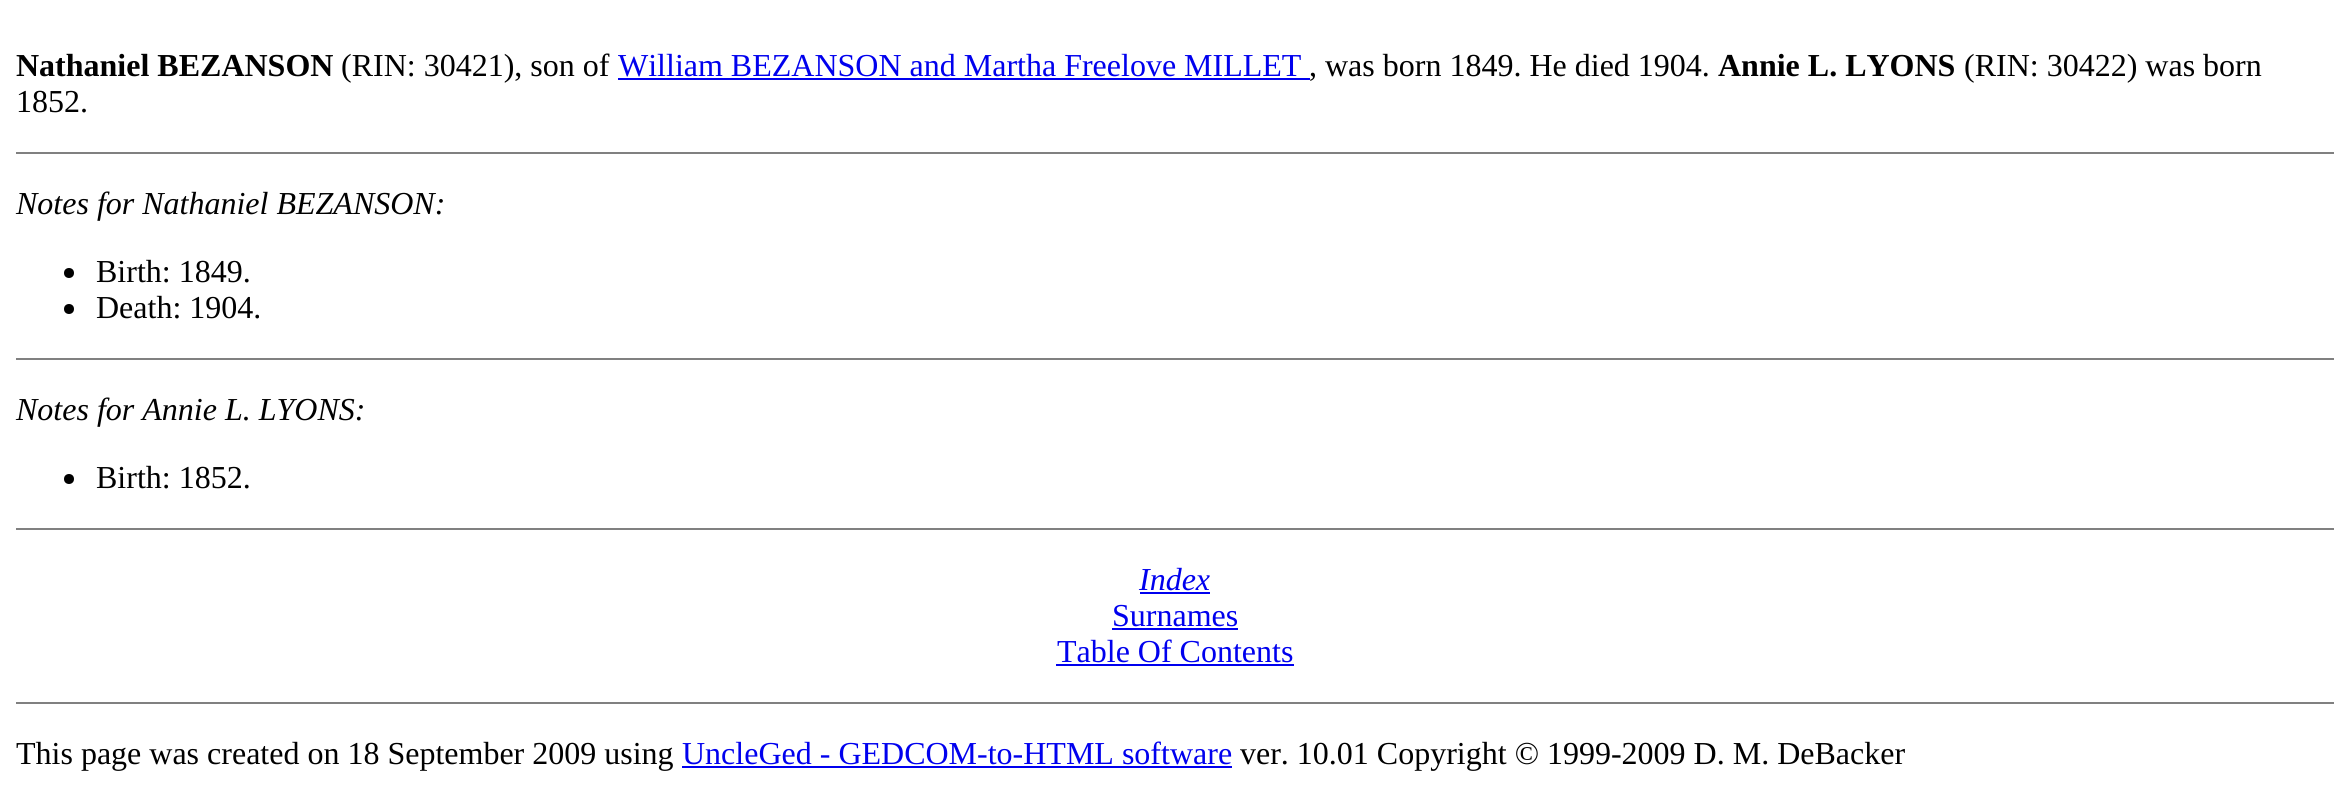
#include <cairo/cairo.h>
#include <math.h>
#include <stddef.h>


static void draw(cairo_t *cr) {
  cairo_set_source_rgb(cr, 1, 1, 1);
  cairo_paint(cr);
  cairo_set_source_rgb(cr, 0, 0, 238 / 255.0);
  cairo_rectangle(cr, 618, 78, 692, 2);
  cairo_fill(cr);
  cairo_set_source_rgb(cr, 128 / 255.0, 128 / 255.0, 128 / 255.0);
  cairo_rectangle(cr, 16, 152, 2318, 2);
  cairo_fill(cr);
  cairo_set_source_rgb(cr, 0, 0, 0);
  cairo_arc(cr, 69, 273, 5, 0, 2 * M_PI);
  cairo_fill(cr);
  cairo_arc(cr, 69, 309, 5, 0, 2 * M_PI);
  cairo_fill(cr);
  cairo_set_source_rgb(cr, 128 / 255.0, 128 / 255.0, 128 / 255.0);
  cairo_rectangle(cr, 16, 358, 2318, 2);
  cairo_fill(cr);
  cairo_set_source_rgb(cr, 0, 0, 0);
  cairo_arc(cr, 69, 479, 5, 0, 2 * M_PI);
  cairo_fill(cr);
  cairo_set_source_rgb(cr, 128 / 255.0, 128 / 255.0, 128 / 255.0);
  cairo_rectangle(cr, 16, 528, 2318, 2);
  cairo_fill(cr);
  cairo_set_source_rgb(cr, 0, 0, 238 / 255.0);
  cairo_rectangle(cr, 1140, 592, 70, 2);
  cairo_fill(cr);
  cairo_rectangle(cr, 1112, 628, 126, 2);
  cairo_fill(cr);
  cairo_rectangle(cr, 1056, 664, 238, 2);
  cairo_fill(cr);
  cairo_set_source_rgb(cr, 128 / 255.0, 128 / 255.0, 128 / 255.0);
  cairo_rectangle(cr, 16, 702, 2318, 2);
  cairo_fill(cr);
  cairo_set_source_rgb(cr, 0, 0, 238 / 255.0);
  cairo_rectangle(cr, 682, 766, 550, 2);
  cairo_fill(cr);
  cairo_select_font_face(cr, "Liberation Serif", CAIRO_FONT_SLANT_NORMAL, CAIRO_FONT_WEIGHT_BOLD);
  cairo_set_font_size(cr, 32);
  cairo_set_source_rgb(cr, 0, 0, 0);
  cairo_move_to(cr, 16, 76);
  cairo_show_text(cr, "Nathaniel BEZANSON");
  cairo_select_font_face(cr, "Liberation Serif", CAIRO_FONT_SLANT_NORMAL, CAIRO_FONT_WEIGHT_NORMAL);
  cairo_move_to(cr, 341, 76);
  cairo_show_text(cr, "(RIN: 30421), son of");
  cairo_set_source_rgb(cr, 0, 0, 238 / 255.0);
  cairo_move_to(cr, 618, 76);
  cairo_show_text(cr, "William BEZANSON and Martha Freelove MILLET");
  cairo_set_source_rgb(cr, 0, 0, 0);
  cairo_move_to(cr, 1309, 76);
  cairo_show_text(cr, ", was born 1849. He died 1904.");
  cairo_select_font_face(cr, "Liberation Serif", CAIRO_FONT_SLANT_NORMAL, CAIRO_FONT_WEIGHT_BOLD);
  cairo_move_to(cr, 1718, 76);
  cairo_show_text(cr, "Annie L. LYONS");
  cairo_select_font_face(cr, "Liberation Serif", CAIRO_FONT_SLANT_NORMAL, CAIRO_FONT_WEIGHT_NORMAL);
  cairo_move_to(cr, 1964, 76);
  cairo_show_text(cr, "(RIN: 30422) was born");
  cairo_move_to(cr, 16, 112);
  cairo_show_text(cr, "1852.");
  cairo_select_font_face(cr, "Liberation Serif", CAIRO_FONT_SLANT_ITALIC, CAIRO_FONT_WEIGHT_NORMAL);
  cairo_move_to(cr, 16, 214);
  cairo_show_text(cr, "Notes for Nathaniel BEZANSON:");
  cairo_select_font_face(cr, "Liberation Serif", CAIRO_FONT_SLANT_NORMAL, CAIRO_FONT_WEIGHT_NORMAL);
  cairo_move_to(cr, 96, 282);
  cairo_show_text(cr, "Birth: 1849.");
  cairo_move_to(cr, 96, 318);
  cairo_show_text(cr, "Death: 1904.");
  cairo_select_font_face(cr, "Liberation Serif", CAIRO_FONT_SLANT_ITALIC, CAIRO_FONT_WEIGHT_NORMAL);
  cairo_move_to(cr, 16, 420);
  cairo_show_text(cr, "Notes for Annie L. LYONS:");
  cairo_select_font_face(cr, "Liberation Serif", CAIRO_FONT_SLANT_NORMAL, CAIRO_FONT_WEIGHT_NORMAL);
  cairo_move_to(cr, 96, 488);
  cairo_show_text(cr, "Birth: 1852.");
  cairo_select_font_face(cr, "Liberation Serif", CAIRO_FONT_SLANT_ITALIC, CAIRO_FONT_WEIGHT_NORMAL);
  cairo_set_source_rgb(cr, 0, 0, 238 / 255.0);
  cairo_move_to(cr, 1139, 590);
  cairo_show_text(cr, "Index");
  cairo_select_font_face(cr, "Liberation Serif", CAIRO_FONT_SLANT_NORMAL, CAIRO_FONT_WEIGHT_NORMAL);
  cairo_move_to(cr, 1112, 626);
  cairo_show_text(cr, "Surnames");
  cairo_move_to(cr, 1057, 662);
  cairo_show_text(cr, "Table Of Contents");
  cairo_set_source_rgb(cr, 0, 0, 0);
  cairo_move_to(cr, 16, 764);
  cairo_show_text(cr, "This page was created on 18 September 2009 using");
  cairo_set_source_rgb(cr, 0, 0, 238 / 255.0);
  cairo_move_to(cr, 682, 764);
  cairo_show_text(cr, "UncleGed - GEDCOM-to-HTML software");
  cairo_set_source_rgb(cr, 0, 0, 0);
  cairo_move_to(cr, 1240, 764);
  cairo_show_text(cr, "ver. 10.01 Copyright © 1999-2009 D. M. DeBacker");
}

int main(void) {
  cairo_surface_t *surface = cairo_image_surface_create(CAIRO_FORMAT_RGB24, 2350, 803);
  cairo_t *cr = cairo_create(surface);
  cairo_font_options_t *options = cairo_font_options_create();
  cairo_font_options_set_hint_metrics(options, CAIRO_HINT_METRICS_OFF);
  cairo_font_options_set_hint_style(options, CAIRO_HINT_STYLE_NONE);
  cairo_set_font_options(cr, options);
  cairo_set_miter_limit(cr, 4);
  draw(cr);
  cairo_surface_write_to_png(surface, "out.png");
  cairo_font_options_destroy(options);
  cairo_destroy(cr);
  cairo_surface_destroy(surface);
  return 0;
}
